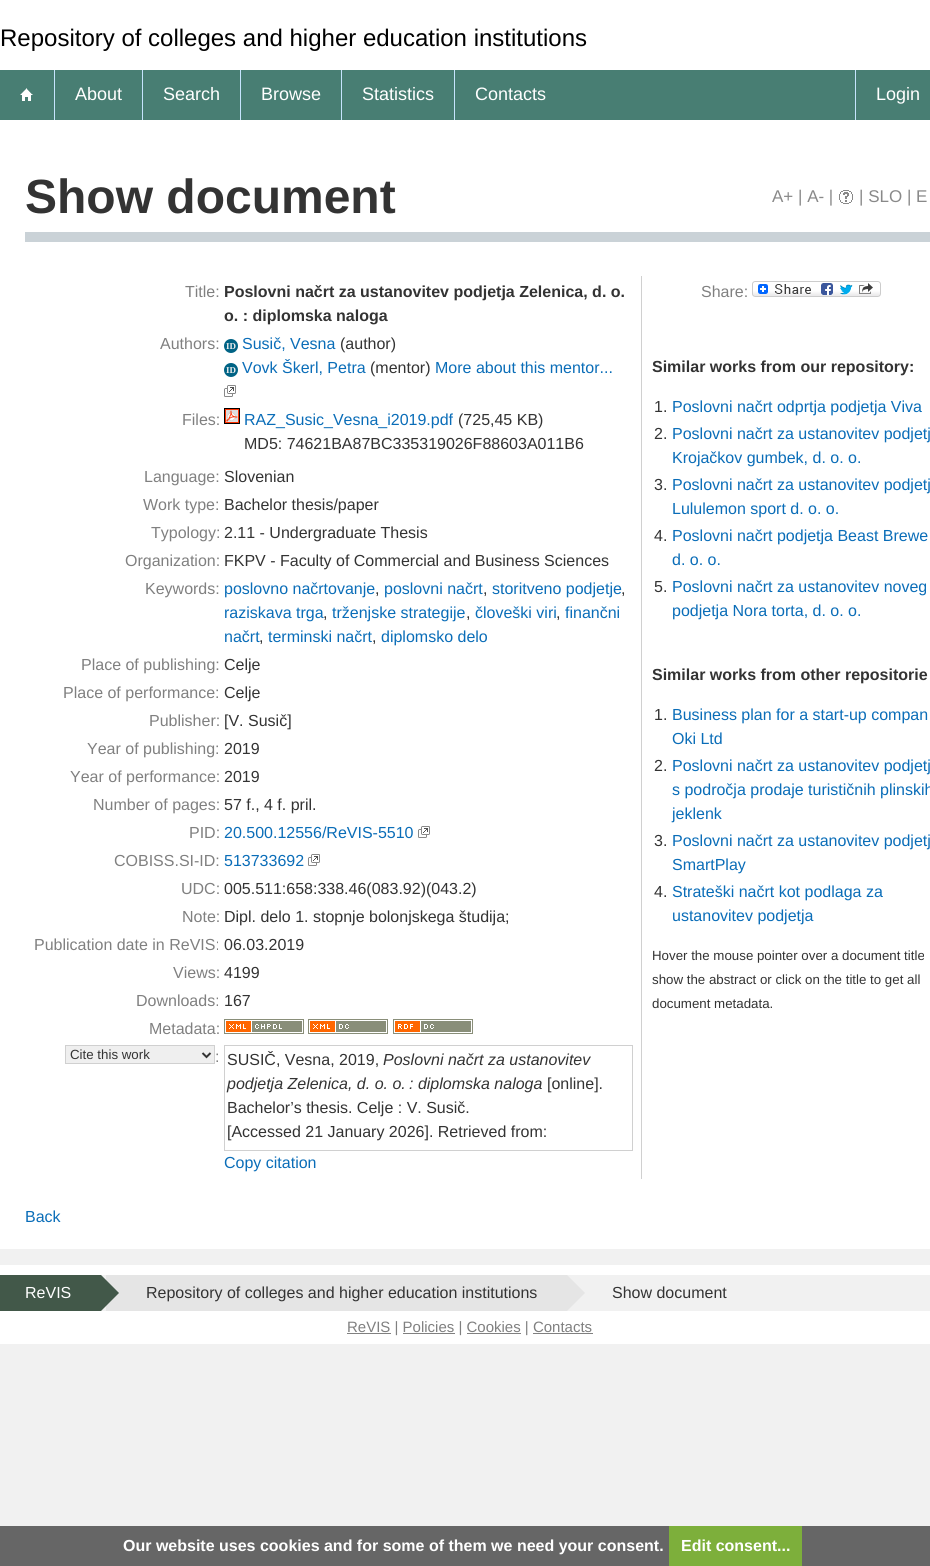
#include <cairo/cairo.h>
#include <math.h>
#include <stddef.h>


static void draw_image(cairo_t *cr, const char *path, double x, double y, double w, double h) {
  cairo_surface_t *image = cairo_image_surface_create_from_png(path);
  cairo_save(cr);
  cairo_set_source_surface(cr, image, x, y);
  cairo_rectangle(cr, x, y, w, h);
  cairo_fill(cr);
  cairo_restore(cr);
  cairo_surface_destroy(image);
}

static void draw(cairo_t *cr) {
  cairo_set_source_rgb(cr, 241 / 255.0, 241 / 255.0, 241 / 255.0);
  cairo_paint(cr);
  cairo_set_source_rgb(cr, 1, 1, 1);
  cairo_rectangle(cr, 0, 0, 930, 1249);
  cairo_fill(cr);
  cairo_set_source_rgb(cr, 72 / 255.0, 126 / 255.0, 115 / 255.0);
  cairo_rectangle(cr, 0, 70, 930, 50);
  cairo_fill(cr);
  draw_image(cr, "images/1.png", 20, 88, 13, 13);
  cairo_set_source_rgb(cr, 198 / 255.0, 228 / 255.0, 253 / 255.0);
  cairo_rectangle(cr, 54, 70, 1, 50);
  cairo_fill(cr);
  cairo_rectangle(cr, 142, 70, 1, 50);
  cairo_fill(cr);
  cairo_rectangle(cr, 240, 70, 1, 50);
  cairo_fill(cr);
  cairo_rectangle(cr, 341, 70, 1, 50);
  cairo_fill(cr);
  cairo_rectangle(cr, 454, 70, 1, 50);
  cairo_fill(cr);
  cairo_rectangle(cr, 855, 70, 1, 50);
  cairo_fill(cr);
  cairo_set_source_rgb(cr, 202 / 255.0, 210 / 255.0, 215 / 255.0);
  cairo_rectangle(cr, 25, 232, 905, 10);
  cairo_fill(cr);
  draw_image(cr, "images/2.png", 839, 190, 14, 14);
  cairo_set_source_rgb(cr, 0, 99 / 255.0, 133 / 255.0);
  cairo_arc(cr, 231, 346, 7, 0, 2 * M_PI);
  cairo_fill(cr);
  cairo_arc(cr, 231, 370, 7, 0, 2 * M_PI);
  cairo_fill(cr);
  draw_image(cr, "images/3.png", 224, 385, 12, 12);
  draw_image(cr, "images/4.png", 224, 408, 16, 16);
  draw_image(cr, "images/3.png", 418, 826, 12, 12);
  draw_image(cr, "images/3.png", 308, 854, 12, 12);
  draw_image(cr, "images/5.png", 224, 1019, 80, 15);
  draw_image(cr, "images/6.png", 308, 1019, 80, 15);
  draw_image(cr, "images/7.png", 393, 1019, 80, 15);
  cairo_set_source_rgb(cr, 239 / 255.0, 239 / 255.0, 239 / 255.0);
  cairo_rectangle(cr, 65.5, 1045.5, 149, 18);
  cairo_fill_preserve(cr);
  cairo_set_source_rgb(cr, 208 / 255.0, 208 / 255.0, 208 / 255.0);
  cairo_set_line_width(cr, 1);
  cairo_stroke(cr);
  cairo_new_path(cr);
  cairo_move_to(cr, 202.5, 1053);
  cairo_line_to(cr, 206.5, 1057);
  cairo_line_to(cr, 210.5, 1053);
  cairo_set_source_rgb(cr, 51 / 255.0, 51 / 255.0, 51 / 255.0);
  cairo_set_line_width(cr, 2);
  cairo_stroke(cr);
  cairo_rectangle(cr, 224.5, 1045.5, 408, 105);
  cairo_set_source_rgb(cr, 208 / 255.0, 208 / 255.0, 208 / 255.0);
  cairo_set_line_width(cr, 1);
  cairo_stroke(cr);
  cairo_rectangle(cr, 641, 276, 1, 903);
  cairo_fill(cr);
  draw_image(cr, "images/8.png", 752, 281, 129, 16);
  cairo_set_source_rgb(cr, 1, 1, 1);
  cairo_rectangle(cr, 0, 1265, 930, 79);
  cairo_fill(cr);
  cairo_set_source_rgb(cr, 241 / 255.0, 241 / 255.0, 241 / 255.0);
  cairo_rectangle(cr, 101, 1275, 829, 36);
  cairo_fill(cr);
  cairo_set_source_rgb(cr, 66 / 255.0, 88 / 255.0, 73 / 255.0);
  cairo_rectangle(cr, 0, 1275, 101, 36);
  cairo_fill(cr);
  cairo_set_source_rgb(cr, 229 / 255.0, 229 / 255.0, 229 / 255.0);
  cairo_rectangle(cr, 106, 1275, 461, 36);
  cairo_fill(cr);
  cairo_set_source_rgb(cr, 66 / 255.0, 88 / 255.0, 73 / 255.0);
  cairo_new_path(cr);
  cairo_move_to(cr, 101, 1311);
  cairo_line_to(cr, 101, 1275);
  cairo_line_to(cr, 119, 1293);
  cairo_close_path(cr);
  cairo_fill(cr);
  cairo_set_source_rgb(cr, 229 / 255.0, 229 / 255.0, 229 / 255.0);
  cairo_new_path(cr);
  cairo_move_to(cr, 567, 1311);
  cairo_line_to(cr, 567, 1275);
  cairo_line_to(cr, 585, 1293);
  cairo_close_path(cr);
  cairo_fill(cr);
  cairo_set_source_rgb(cr, 128 / 255.0, 128 / 255.0, 128 / 255.0);
  cairo_rectangle(cr, 347, 1333, 44, 1);
  cairo_fill(cr);
  cairo_rectangle(cr, 403, 1333, 52, 1);
  cairo_fill(cr);
  cairo_rectangle(cr, 467, 1333, 54, 1);
  cairo_fill(cr);
  cairo_rectangle(cr, 533, 1333, 60, 1);
  cairo_fill(cr);
  cairo_set_source_rgb(cr, 102 / 255.0, 102 / 255.0, 102 / 255.0);
  cairo_rectangle(cr, 0, 1526, 930, 40);
  cairo_fill(cr);
  cairo_set_source_rgb(cr, 125 / 255.0, 175 / 255.0, 59 / 255.0);
  cairo_rectangle(cr, 669, 1526, 133, 40);
  cairo_fill(cr);
  cairo_select_font_face(cr, "Liberation Sans", CAIRO_FONT_SLANT_NORMAL, CAIRO_FONT_WEIGHT_NORMAL);
  cairo_set_font_size(cr, 24);
  cairo_set_source_rgb(cr, 0, 0, 0);
  cairo_move_to(cr, 0, 46);
  cairo_show_text(cr, "Repository of colleges and higher education institutions");
  cairo_set_font_size(cr, 18);
  cairo_set_source_rgb(cr, 1, 1, 1);
  cairo_move_to(cr, 75, 100);
  cairo_show_text(cr, "About");
  cairo_move_to(cr, 163, 100);
  cairo_show_text(cr, "Search");
  cairo_move_to(cr, 261, 100);
  cairo_show_text(cr, "Browse");
  cairo_move_to(cr, 362, 100);
  cairo_show_text(cr, "Statistics");
  cairo_move_to(cr, 475, 100);
  cairo_show_text(cr, "Contacts");
  cairo_move_to(cr, 876, 100);
  cairo_show_text(cr, "Login");
  cairo_select_font_face(cr, "Liberation Sans", CAIRO_FONT_SLANT_NORMAL, CAIRO_FONT_WEIGHT_BOLD);
  cairo_set_font_size(cr, 48);
  cairo_set_source_rgb(cr, 51 / 255.0, 51 / 255.0, 51 / 255.0);
  cairo_move_to(cr, 25, 213);
  cairo_show_text(cr, "Show document");
  cairo_select_font_face(cr, "Liberation Sans", CAIRO_FONT_SLANT_NORMAL, CAIRO_FONT_WEIGHT_NORMAL);
  cairo_set_font_size(cr, 17);
  cairo_set_source_rgb(cr, 137 / 255.0, 137 / 255.0, 137 / 255.0);
  cairo_move_to(cr, 772, 202);
  cairo_show_text(cr, "A+ | A- |");
  cairo_move_to(cr, 859, 202);
  cairo_show_text(cr, "| SLO | E");
  cairo_set_font_size(cr, 16);
  cairo_set_source_rgb(cr, 128 / 255.0, 128 / 255.0, 128 / 255.0);
  cairo_move_to(cr, 185, 297);
  cairo_show_text(cr, "Title:");
  cairo_select_font_face(cr, "Liberation Sans", CAIRO_FONT_SLANT_NORMAL, CAIRO_FONT_WEIGHT_BOLD);
  cairo_set_source_rgb(cr, 51 / 255.0, 51 / 255.0, 51 / 255.0);
  cairo_move_to(cr, 224, 297);
  cairo_show_text(cr, "Poslovni načrt za ustanovitev podjetja Zelenica, d. o.");
  cairo_move_to(cr, 224, 321);
  cairo_show_text(cr, "o. : diplomska naloga");
  cairo_select_font_face(cr, "Liberation Sans", CAIRO_FONT_SLANT_NORMAL, CAIRO_FONT_WEIGHT_NORMAL);
  cairo_set_source_rgb(cr, 128 / 255.0, 128 / 255.0, 128 / 255.0);
  cairo_move_to(cr, 160, 349);
  cairo_show_text(cr, "Authors:");
  cairo_select_font_face(cr, "Liberation Serif", CAIRO_FONT_SLANT_NORMAL, CAIRO_FONT_WEIGHT_BOLD);
  cairo_set_font_size(cr, 9);
  cairo_set_source_rgb(cr, 238 / 255.0, 238 / 255.0, 238 / 255.0);
  cairo_move_to(cr, 226, 349);
  cairo_show_text(cr, "ID");
  cairo_select_font_face(cr, "Liberation Sans", CAIRO_FONT_SLANT_NORMAL, CAIRO_FONT_WEIGHT_NORMAL);
  cairo_set_font_size(cr, 16);
  cairo_set_source_rgb(cr, 10 / 255.0, 109 / 255.0, 184 / 255.0);
  cairo_move_to(cr, 242, 349);
  cairo_show_text(cr, "Susič, Vesna");
  cairo_set_source_rgb(cr, 51 / 255.0, 51 / 255.0, 51 / 255.0);
  cairo_move_to(cr, 340, 349);
  cairo_show_text(cr, "(author)");
  cairo_select_font_face(cr, "Liberation Serif", CAIRO_FONT_SLANT_NORMAL, CAIRO_FONT_WEIGHT_BOLD);
  cairo_set_font_size(cr, 9);
  cairo_set_source_rgb(cr, 238 / 255.0, 238 / 255.0, 238 / 255.0);
  cairo_move_to(cr, 226, 373);
  cairo_show_text(cr, "ID");
  cairo_select_font_face(cr, "Liberation Sans", CAIRO_FONT_SLANT_NORMAL, CAIRO_FONT_WEIGHT_NORMAL);
  cairo_set_font_size(cr, 16);
  cairo_set_source_rgb(cr, 10 / 255.0, 109 / 255.0, 184 / 255.0);
  cairo_move_to(cr, 242, 373);
  cairo_show_text(cr, "Vovk Škerl, Petra");
  cairo_set_source_rgb(cr, 51 / 255.0, 51 / 255.0, 51 / 255.0);
  cairo_move_to(cr, 370, 373);
  cairo_show_text(cr, "(mentor)");
  cairo_set_source_rgb(cr, 10 / 255.0, 109 / 255.0, 184 / 255.0);
  cairo_move_to(cr, 435, 373);
  cairo_show_text(cr, "More about this mentor...");
  cairo_set_source_rgb(cr, 128 / 255.0, 128 / 255.0, 128 / 255.0);
  cairo_move_to(cr, 182, 425);
  cairo_show_text(cr, "Files:");
  cairo_set_source_rgb(cr, 10 / 255.0, 109 / 255.0, 184 / 255.0);
  cairo_move_to(cr, 244, 425);
  cairo_show_text(cr, "RAZ_Susic_Vesna_i2019.pdf");
  cairo_set_source_rgb(cr, 51 / 255.0, 51 / 255.0, 51 / 255.0);
  cairo_move_to(cr, 458, 425);
  cairo_show_text(cr, "(725,45 KB)");
  cairo_move_to(cr, 244, 449);
  cairo_show_text(cr, "MD5: 74621BA87BC335319026F88603A011B6");
  cairo_set_source_rgb(cr, 128 / 255.0, 128 / 255.0, 128 / 255.0);
  cairo_move_to(cr, 144, 482);
  cairo_show_text(cr, "Language:");
  cairo_set_source_rgb(cr, 51 / 255.0, 51 / 255.0, 51 / 255.0);
  cairo_move_to(cr, 224, 482);
  cairo_show_text(cr, "Slovenian");
  cairo_set_source_rgb(cr, 128 / 255.0, 128 / 255.0, 128 / 255.0);
  cairo_move_to(cr, 143, 510);
  cairo_show_text(cr, "Work type:");
  cairo_set_source_rgb(cr, 51 / 255.0, 51 / 255.0, 51 / 255.0);
  cairo_move_to(cr, 224, 510);
  cairo_show_text(cr, "Bachelor thesis/paper");
  cairo_set_source_rgb(cr, 128 / 255.0, 128 / 255.0, 128 / 255.0);
  cairo_move_to(cr, 151, 538);
  cairo_show_text(cr, "Typology:");
  cairo_set_source_rgb(cr, 51 / 255.0, 51 / 255.0, 51 / 255.0);
  cairo_move_to(cr, 224, 538);
  cairo_show_text(cr, "2.11 - Undergraduate Thesis");
  cairo_set_source_rgb(cr, 128 / 255.0, 128 / 255.0, 128 / 255.0);
  cairo_move_to(cr, 125, 566);
  cairo_show_text(cr, "Organization:");
  cairo_set_source_rgb(cr, 51 / 255.0, 51 / 255.0, 51 / 255.0);
  cairo_move_to(cr, 224, 566);
  cairo_show_text(cr, "FKPV - Faculty of Commercial and Business Sciences");
  cairo_set_source_rgb(cr, 128 / 255.0, 128 / 255.0, 128 / 255.0);
  cairo_move_to(cr, 145, 594);
  cairo_show_text(cr, "Keywords:");
  cairo_set_source_rgb(cr, 10 / 255.0, 109 / 255.0, 184 / 255.0);
  cairo_move_to(cr, 224, 594);
  cairo_show_text(cr, "poslovno načrtovanje");
  cairo_set_source_rgb(cr, 51 / 255.0, 51 / 255.0, 51 / 255.0);
  cairo_move_to(cr, 375, 594);
  cairo_show_text(cr, ",");
  cairo_set_source_rgb(cr, 10 / 255.0, 109 / 255.0, 184 / 255.0);
  cairo_move_to(cr, 384, 594);
  cairo_show_text(cr, "poslovni načrt");
  cairo_set_source_rgb(cr, 51 / 255.0, 51 / 255.0, 51 / 255.0);
  cairo_move_to(cr, 483, 594);
  cairo_show_text(cr, ",");
  cairo_set_source_rgb(cr, 10 / 255.0, 109 / 255.0, 184 / 255.0);
  cairo_move_to(cr, 492, 594);
  cairo_show_text(cr, "storitveno podjetje");
  cairo_set_source_rgb(cr, 51 / 255.0, 51 / 255.0, 51 / 255.0);
  cairo_move_to(cr, 621, 594);
  cairo_show_text(cr, ",");
  cairo_set_source_rgb(cr, 10 / 255.0, 109 / 255.0, 184 / 255.0);
  cairo_move_to(cr, 224, 618);
  cairo_show_text(cr, "raziskava trga");
  cairo_set_source_rgb(cr, 51 / 255.0, 51 / 255.0, 51 / 255.0);
  cairo_move_to(cr, 323, 618);
  cairo_show_text(cr, ",");
  cairo_set_source_rgb(cr, 10 / 255.0, 109 / 255.0, 184 / 255.0);
  cairo_move_to(cr, 332, 618);
  cairo_show_text(cr, "trženjske strategije");
  cairo_set_source_rgb(cr, 51 / 255.0, 51 / 255.0, 51 / 255.0);
  cairo_move_to(cr, 466, 618);
  cairo_show_text(cr, ",");
  cairo_set_source_rgb(cr, 10 / 255.0, 109 / 255.0, 184 / 255.0);
  cairo_move_to(cr, 475, 618);
  cairo_show_text(cr, "človeški viri");
  cairo_set_source_rgb(cr, 51 / 255.0, 51 / 255.0, 51 / 255.0);
  cairo_move_to(cr, 556, 618);
  cairo_show_text(cr, ",");
  cairo_set_source_rgb(cr, 10 / 255.0, 109 / 255.0, 184 / 255.0);
  cairo_move_to(cr, 565, 618);
  cairo_show_text(cr, "finančni");
  cairo_move_to(cr, 224, 642);
  cairo_show_text(cr, "načrt");
  cairo_set_source_rgb(cr, 51 / 255.0, 51 / 255.0, 51 / 255.0);
  cairo_move_to(cr, 259, 642);
  cairo_show_text(cr, ",");
  cairo_set_source_rgb(cr, 10 / 255.0, 109 / 255.0, 184 / 255.0);
  cairo_move_to(cr, 268, 642);
  cairo_show_text(cr, "terminski načrt");
  cairo_set_source_rgb(cr, 51 / 255.0, 51 / 255.0, 51 / 255.0);
  cairo_move_to(cr, 372, 642);
  cairo_show_text(cr, ",");
  cairo_set_source_rgb(cr, 10 / 255.0, 109 / 255.0, 184 / 255.0);
  cairo_move_to(cr, 381, 642);
  cairo_show_text(cr, "diplomsko delo");
  cairo_set_source_rgb(cr, 128 / 255.0, 128 / 255.0, 128 / 255.0);
  cairo_move_to(cr, 81, 670);
  cairo_show_text(cr, "Place of publishing:");
  cairo_set_source_rgb(cr, 51 / 255.0, 51 / 255.0, 51 / 255.0);
  cairo_move_to(cr, 224, 670);
  cairo_show_text(cr, "Celje");
  cairo_set_source_rgb(cr, 128 / 255.0, 128 / 255.0, 128 / 255.0);
  cairo_move_to(cr, 63, 698);
  cairo_show_text(cr, "Place of performance:");
  cairo_set_source_rgb(cr, 51 / 255.0, 51 / 255.0, 51 / 255.0);
  cairo_move_to(cr, 224, 698);
  cairo_show_text(cr, "Celje");
  cairo_set_source_rgb(cr, 128 / 255.0, 128 / 255.0, 128 / 255.0);
  cairo_move_to(cr, 149, 726);
  cairo_show_text(cr, "Publisher:");
  cairo_set_source_rgb(cr, 51 / 255.0, 51 / 255.0, 51 / 255.0);
  cairo_move_to(cr, 224, 726);
  cairo_show_text(cr, "[V. Susič]");
  cairo_set_source_rgb(cr, 128 / 255.0, 128 / 255.0, 128 / 255.0);
  cairo_move_to(cr, 87, 754);
  cairo_show_text(cr, "Year of publishing:");
  cairo_set_source_rgb(cr, 51 / 255.0, 51 / 255.0, 51 / 255.0);
  cairo_move_to(cr, 224, 754);
  cairo_show_text(cr, "2019");
  cairo_set_source_rgb(cr, 128 / 255.0, 128 / 255.0, 128 / 255.0);
  cairo_move_to(cr, 70, 782);
  cairo_show_text(cr, "Year of performance:");
  cairo_set_source_rgb(cr, 51 / 255.0, 51 / 255.0, 51 / 255.0);
  cairo_move_to(cr, 224, 782);
  cairo_show_text(cr, "2019");
  cairo_set_source_rgb(cr, 128 / 255.0, 128 / 255.0, 128 / 255.0);
  cairo_move_to(cr, 93, 810);
  cairo_show_text(cr, "Number of pages:");
  cairo_set_source_rgb(cr, 51 / 255.0, 51 / 255.0, 51 / 255.0);
  cairo_move_to(cr, 224, 810);
  cairo_show_text(cr, "57 f., 4 f. pril.");
  cairo_set_source_rgb(cr, 128 / 255.0, 128 / 255.0, 128 / 255.0);
  cairo_move_to(cr, 189, 838);
  cairo_show_text(cr, "PID:");
  cairo_set_source_rgb(cr, 10 / 255.0, 109 / 255.0, 184 / 255.0);
  cairo_move_to(cr, 224, 838);
  cairo_show_text(cr, "20.500.12556/ReVIS-5510");
  cairo_set_source_rgb(cr, 128 / 255.0, 128 / 255.0, 128 / 255.0);
  cairo_move_to(cr, 114, 866);
  cairo_show_text(cr, "COBISS.SI-ID:");
  cairo_set_source_rgb(cr, 10 / 255.0, 109 / 255.0, 184 / 255.0);
  cairo_move_to(cr, 224, 866);
  cairo_show_text(cr, "513733692");
  cairo_set_source_rgb(cr, 128 / 255.0, 128 / 255.0, 128 / 255.0);
  cairo_move_to(cr, 181, 894);
  cairo_show_text(cr, "UDC:");
  cairo_set_source_rgb(cr, 51 / 255.0, 51 / 255.0, 51 / 255.0);
  cairo_move_to(cr, 224, 894);
  cairo_show_text(cr, "005.511:658:338.46(083.92)(043.2)");
  cairo_set_source_rgb(cr, 128 / 255.0, 128 / 255.0, 128 / 255.0);
  cairo_move_to(cr, 182, 922);
  cairo_show_text(cr, "Note:");
  cairo_set_source_rgb(cr, 51 / 255.0, 51 / 255.0, 51 / 255.0);
  cairo_move_to(cr, 224, 922);
  cairo_show_text(cr, "Dipl. delo 1. stopnje bolonjskega študija;");
  cairo_set_source_rgb(cr, 128 / 255.0, 128 / 255.0, 128 / 255.0);
  cairo_move_to(cr, 34, 950);
  cairo_show_text(cr, "Publication date in ReVIS:");
  cairo_set_source_rgb(cr, 51 / 255.0, 51 / 255.0, 51 / 255.0);
  cairo_move_to(cr, 224, 950);
  cairo_show_text(cr, "06.03.2019");
  cairo_set_source_rgb(cr, 128 / 255.0, 128 / 255.0, 128 / 255.0);
  cairo_move_to(cr, 173, 978);
  cairo_show_text(cr, "Views:");
  cairo_set_source_rgb(cr, 51 / 255.0, 51 / 255.0, 51 / 255.0);
  cairo_move_to(cr, 224, 978);
  cairo_show_text(cr, "4199");
  cairo_set_source_rgb(cr, 128 / 255.0, 128 / 255.0, 128 / 255.0);
  cairo_move_to(cr, 136, 1006);
  cairo_show_text(cr, "Downloads:");
  cairo_set_source_rgb(cr, 51 / 255.0, 51 / 255.0, 51 / 255.0);
  cairo_move_to(cr, 224, 1006);
  cairo_show_text(cr, "167");
  cairo_set_source_rgb(cr, 128 / 255.0, 128 / 255.0, 128 / 255.0);
  cairo_move_to(cr, 149, 1034);
  cairo_show_text(cr, "Metadata:");
  cairo_set_font_size(cr, 13.3);
  cairo_set_source_rgb(cr, 51 / 255.0, 51 / 255.0, 51 / 255.0);
  cairo_move_to(cr, 70, 1059);
  cairo_show_text(cr, "Cite this work");
  cairo_set_font_size(cr, 16);
  cairo_set_source_rgb(cr, 128 / 255.0, 128 / 255.0, 128 / 255.0);
  cairo_move_to(cr, 215, 1062);
  cairo_show_text(cr, ":");
  cairo_set_source_rgb(cr, 51 / 255.0, 51 / 255.0, 51 / 255.0);
  cairo_move_to(cr, 227, 1065);
  cairo_show_text(cr, "SUSIČ, Vesna, 2019,");
  cairo_select_font_face(cr, "Liberation Sans", CAIRO_FONT_SLANT_ITALIC, CAIRO_FONT_WEIGHT_NORMAL);
  cairo_move_to(cr, 383, 1065);
  cairo_show_text(cr, "Poslovni načrt za ustanovitev");
  cairo_move_to(cr, 227, 1089);
  cairo_show_text(cr, "podjetja Zelenica, d. o. o. : diplomska naloga");
  cairo_select_font_face(cr, "Liberation Sans", CAIRO_FONT_SLANT_NORMAL, CAIRO_FONT_WEIGHT_NORMAL);
  cairo_move_to(cr, 547, 1089);
  cairo_show_text(cr, "[online].");
  cairo_move_to(cr, 227, 1113);
  cairo_show_text(cr, "Bachelor’s thesis. Celje : V. Susič.");
  cairo_move_to(cr, 227, 1137);
  cairo_show_text(cr, "[Accessed 21 January 2026]. Retrieved from:");
  cairo_set_source_rgb(cr, 10 / 255.0, 109 / 255.0, 184 / 255.0);
  cairo_move_to(cr, 224, 1168);
  cairo_show_text(cr, "Copy citation");
  cairo_set_source_rgb(cr, 128 / 255.0, 128 / 255.0, 128 / 255.0);
  cairo_move_to(cr, 701, 297);
  cairo_show_text(cr, "Share:");
  cairo_select_font_face(cr, "Liberation Sans", CAIRO_FONT_SLANT_NORMAL, CAIRO_FONT_WEIGHT_BOLD);
  cairo_set_source_rgb(cr, 51 / 255.0, 51 / 255.0, 51 / 255.0);
  cairo_move_to(cr, 652, 372);
  cairo_show_text(cr, "Similar works from our repository:");
  cairo_select_font_face(cr, "Liberation Sans", CAIRO_FONT_SLANT_NORMAL, CAIRO_FONT_WEIGHT_NORMAL);
  cairo_move_to(cr, 654, 412);
  cairo_show_text(cr, "1.");
  cairo_set_source_rgb(cr, 10 / 255.0, 109 / 255.0, 184 / 255.0);
  cairo_move_to(cr, 672, 412);
  cairo_show_text(cr, "Poslovni načrt odprtja podjetja Viva");
  cairo_set_source_rgb(cr, 51 / 255.0, 51 / 255.0, 51 / 255.0);
  cairo_move_to(cr, 654, 439);
  cairo_show_text(cr, "2.");
  cairo_set_source_rgb(cr, 10 / 255.0, 109 / 255.0, 184 / 255.0);
  cairo_move_to(cr, 672, 439);
  cairo_show_text(cr, "Poslovni načrt za ustanovitev podjetj");
  cairo_move_to(cr, 672, 463);
  cairo_show_text(cr, "Krojačkov gumbek, d. o. o.");
  cairo_set_source_rgb(cr, 51 / 255.0, 51 / 255.0, 51 / 255.0);
  cairo_move_to(cr, 654, 490);
  cairo_show_text(cr, "3.");
  cairo_set_source_rgb(cr, 10 / 255.0, 109 / 255.0, 184 / 255.0);
  cairo_move_to(cr, 672, 490);
  cairo_show_text(cr, "Poslovni načrt za ustanovitev podjetj");
  cairo_move_to(cr, 672, 514);
  cairo_show_text(cr, "Lululemon sport d. o. o.");
  cairo_set_source_rgb(cr, 51 / 255.0, 51 / 255.0, 51 / 255.0);
  cairo_move_to(cr, 654, 541);
  cairo_show_text(cr, "4.");
  cairo_set_source_rgb(cr, 10 / 255.0, 109 / 255.0, 184 / 255.0);
  cairo_move_to(cr, 672, 541);
  cairo_show_text(cr, "Poslovni načrt podjetja Beast Brewe");
  cairo_move_to(cr, 672, 565);
  cairo_show_text(cr, "d. o. o.");
  cairo_set_source_rgb(cr, 51 / 255.0, 51 / 255.0, 51 / 255.0);
  cairo_move_to(cr, 654, 592);
  cairo_show_text(cr, "5.");
  cairo_set_source_rgb(cr, 10 / 255.0, 109 / 255.0, 184 / 255.0);
  cairo_move_to(cr, 672, 592);
  cairo_show_text(cr, "Poslovni načrt za ustanovitev noveg");
  cairo_move_to(cr, 672, 616);
  cairo_show_text(cr, "podjetja Nora torta, d. o. o.");
  cairo_select_font_face(cr, "Liberation Sans", CAIRO_FONT_SLANT_NORMAL, CAIRO_FONT_WEIGHT_BOLD);
  cairo_set_source_rgb(cr, 51 / 255.0, 51 / 255.0, 51 / 255.0);
  cairo_move_to(cr, 652, 680);
  cairo_show_text(cr, "Similar works from other repositorie");
  cairo_select_font_face(cr, "Liberation Sans", CAIRO_FONT_SLANT_NORMAL, CAIRO_FONT_WEIGHT_NORMAL);
  cairo_move_to(cr, 654, 720);
  cairo_show_text(cr, "1.");
  cairo_set_source_rgb(cr, 10 / 255.0, 109 / 255.0, 184 / 255.0);
  cairo_move_to(cr, 672, 720);
  cairo_show_text(cr, "Business plan for a start-up compan");
  cairo_move_to(cr, 672, 744);
  cairo_show_text(cr, "Oki Ltd");
  cairo_set_source_rgb(cr, 51 / 255.0, 51 / 255.0, 51 / 255.0);
  cairo_move_to(cr, 654, 771);
  cairo_show_text(cr, "2.");
  cairo_set_source_rgb(cr, 10 / 255.0, 109 / 255.0, 184 / 255.0);
  cairo_move_to(cr, 672, 771);
  cairo_show_text(cr, "Poslovni načrt za ustanovitev podjetj");
  cairo_move_to(cr, 672, 795);
  cairo_show_text(cr, "s področja prodaje turističnih plinskih");
  cairo_move_to(cr, 672, 819);
  cairo_show_text(cr, "jeklenk");
  cairo_set_source_rgb(cr, 51 / 255.0, 51 / 255.0, 51 / 255.0);
  cairo_move_to(cr, 654, 846);
  cairo_show_text(cr, "3.");
  cairo_set_source_rgb(cr, 10 / 255.0, 109 / 255.0, 184 / 255.0);
  cairo_move_to(cr, 672, 846);
  cairo_show_text(cr, "Poslovni načrt za ustanovitev podjetj");
  cairo_move_to(cr, 672, 870);
  cairo_show_text(cr, "SmartPlay");
  cairo_set_source_rgb(cr, 51 / 255.0, 51 / 255.0, 51 / 255.0);
  cairo_move_to(cr, 654, 897);
  cairo_show_text(cr, "4.");
  cairo_set_source_rgb(cr, 10 / 255.0, 109 / 255.0, 184 / 255.0);
  cairo_move_to(cr, 672, 897);
  cairo_show_text(cr, "Strateški načrt kot podlaga za");
  cairo_move_to(cr, 672, 921);
  cairo_show_text(cr, "ustanovitev podjetja");
  cairo_set_font_size(cr, 13.3);
  cairo_set_source_rgb(cr, 51 / 255.0, 51 / 255.0, 51 / 255.0);
  cairo_move_to(cr, 652, 960);
  cairo_show_text(cr, "Hover the mouse pointer over a document title");
  cairo_move_to(cr, 652, 984);
  cairo_show_text(cr, "show the abstract or click on the title to get all");
  cairo_move_to(cr, 652, 1008);
  cairo_show_text(cr, "document metadata.");
  cairo_set_font_size(cr, 16);
  cairo_set_source_rgb(cr, 10 / 255.0, 109 / 255.0, 184 / 255.0);
  cairo_move_to(cr, 25, 1222);
  cairo_show_text(cr, "Back");
  cairo_set_source_rgb(cr, 1, 1, 1);
  cairo_move_to(cr, 25, 1298);
  cairo_show_text(cr, "ReVIS");
  cairo_set_source_rgb(cr, 51 / 255.0, 51 / 255.0, 51 / 255.0);
  cairo_move_to(cr, 146, 1298);
  cairo_show_text(cr, "Repository of colleges and higher education institutions");
  cairo_move_to(cr, 612, 1298);
  cairo_show_text(cr, "Show document");
  cairo_set_font_size(cr, 15);
  cairo_set_source_rgb(cr, 128 / 255.0, 128 / 255.0, 128 / 255.0);
  cairo_move_to(cr, 347, 1332);
  cairo_show_text(cr, "ReVIS | Policies | Cookies | Contacts");
  cairo_select_font_face(cr, "Liberation Sans", CAIRO_FONT_SLANT_NORMAL, CAIRO_FONT_WEIGHT_BOLD);
  cairo_set_font_size(cr, 16);
  cairo_set_source_rgb(cr, 1, 1, 1);
  cairo_move_to(cr, 123, 1551);
  cairo_show_text(cr, "Our website uses cookies and for some of them we need your consent.");
  cairo_move_to(cr, 681, 1551);
  cairo_show_text(cr, "Edit consent...");
}

int main(void) {
  cairo_surface_t *surface = cairo_image_surface_create(CAIRO_FORMAT_RGB24, 930, 1566);
  cairo_t *cr = cairo_create(surface);
  cairo_font_options_t *options = cairo_font_options_create();
  cairo_font_options_set_hint_metrics(options, CAIRO_HINT_METRICS_OFF);
  cairo_font_options_set_hint_style(options, CAIRO_HINT_STYLE_NONE);
  cairo_set_font_options(cr, options);
  cairo_set_miter_limit(cr, 4);
  draw(cr);
  cairo_surface_write_to_png(surface, "out.png");
  cairo_font_options_destroy(options);
  cairo_destroy(cr);
  cairo_surface_destroy(surface);
  return 0;
}
